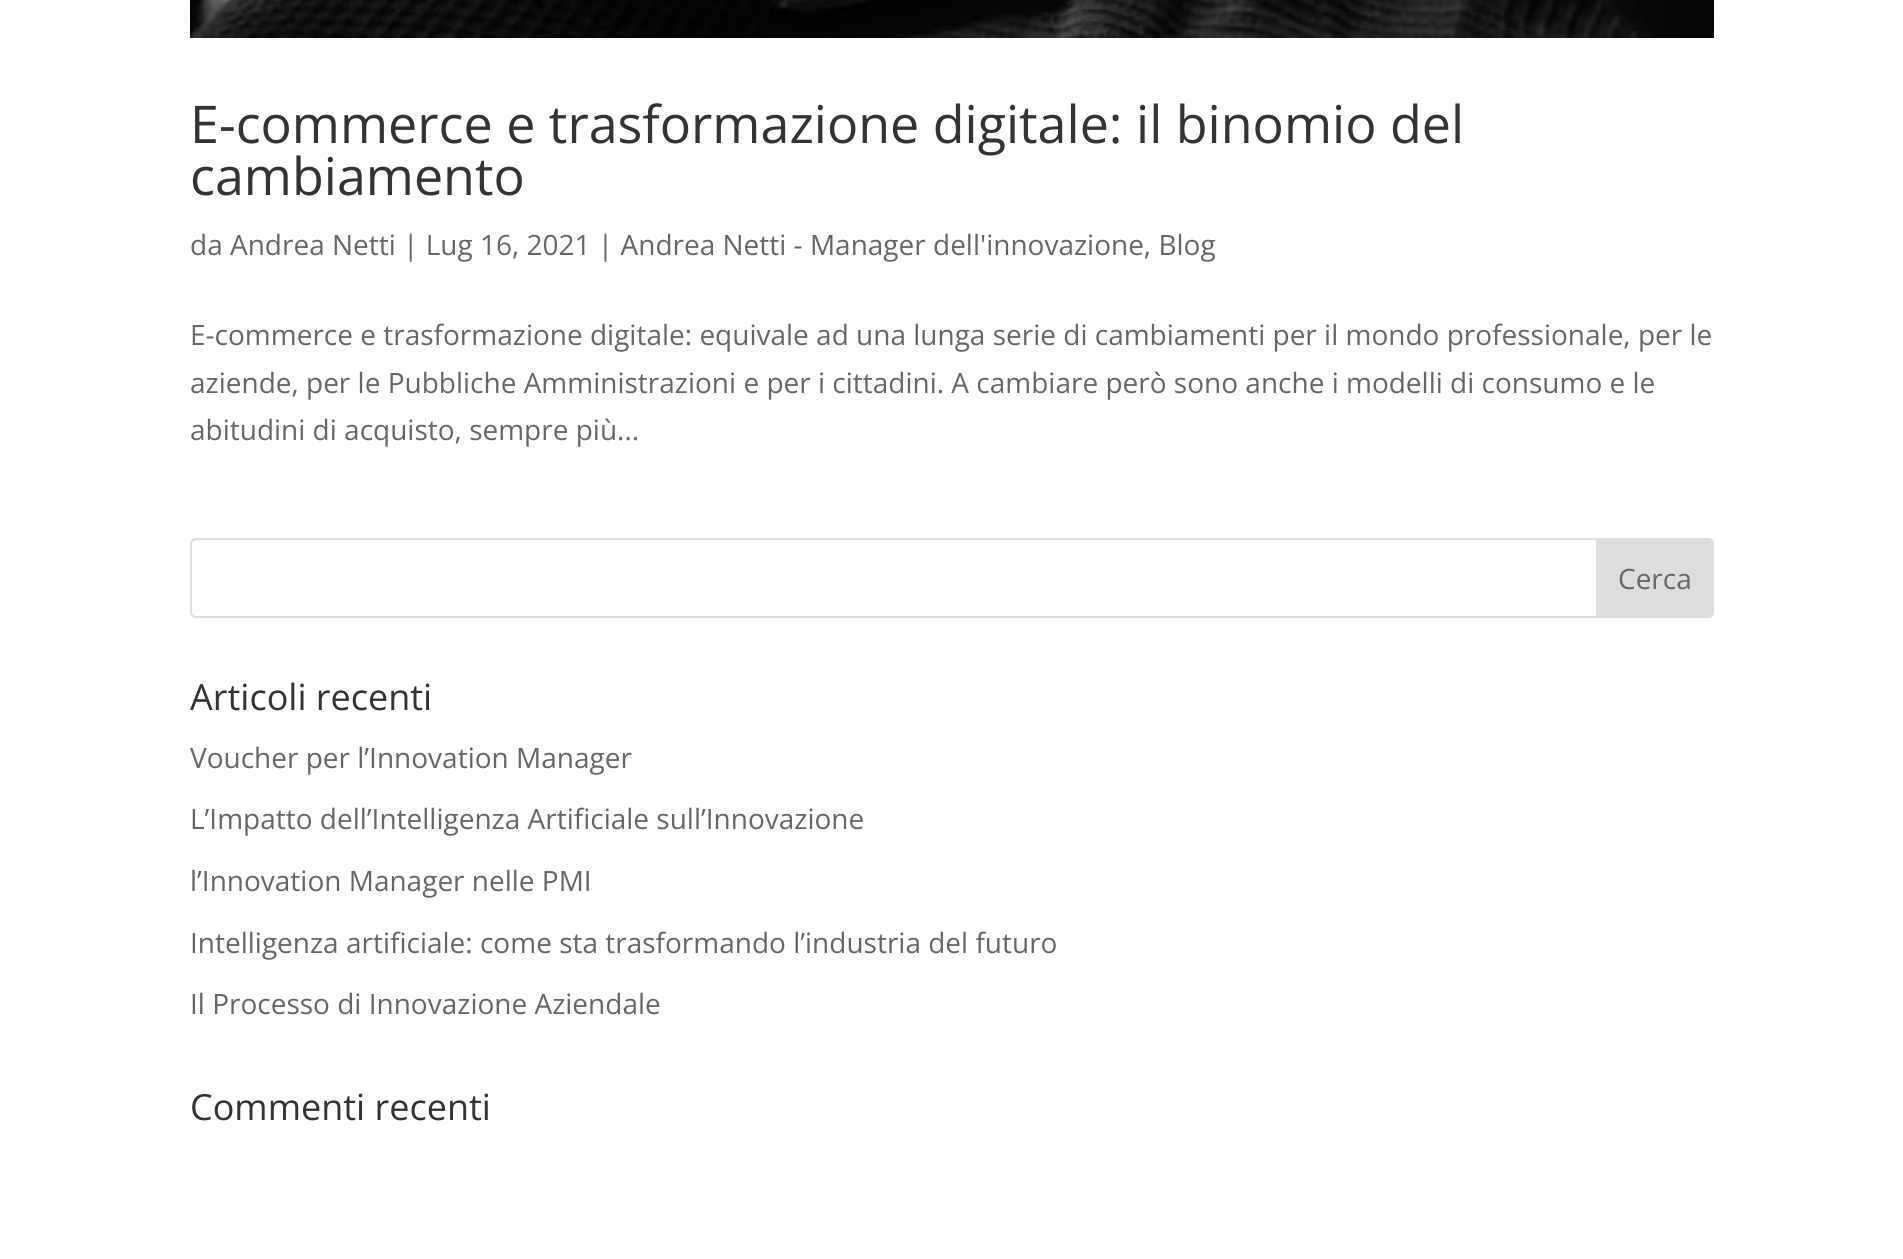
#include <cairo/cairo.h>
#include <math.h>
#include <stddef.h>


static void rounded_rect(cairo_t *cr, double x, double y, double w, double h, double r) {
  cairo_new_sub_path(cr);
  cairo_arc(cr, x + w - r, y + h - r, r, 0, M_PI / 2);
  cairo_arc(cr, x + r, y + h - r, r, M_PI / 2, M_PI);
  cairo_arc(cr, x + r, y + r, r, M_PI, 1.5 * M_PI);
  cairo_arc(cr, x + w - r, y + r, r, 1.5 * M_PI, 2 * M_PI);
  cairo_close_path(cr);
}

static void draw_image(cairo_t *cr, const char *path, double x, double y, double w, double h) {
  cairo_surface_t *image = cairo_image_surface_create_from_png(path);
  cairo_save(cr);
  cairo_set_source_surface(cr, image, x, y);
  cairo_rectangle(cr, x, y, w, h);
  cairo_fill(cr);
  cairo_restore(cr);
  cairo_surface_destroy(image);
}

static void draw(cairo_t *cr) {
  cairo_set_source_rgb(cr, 1, 1, 1);
  cairo_paint(cr);
  draw_image(cr, "images/1.png", 190, 0, 1524, 38);
  rounded_rect(cr, 191, 539, 1522, 78, 5);
  cairo_set_source_rgb(cr, 221 / 255.0, 221 / 255.0, 221 / 255.0);
  cairo_stroke(cr);
  cairo_new_path(cr);
  cairo_move_to(cr, 1597, 539);
  cairo_line_to(cr, 1708, 539);
  cairo_curve_to(cr, 1711, 539, 1713, 541, 1713, 544);
  cairo_line_to(cr, 1713, 612);
  cairo_curve_to(cr, 1713, 615, 1711, 617, 1708, 617);
  cairo_line_to(cr, 1597, 617);
  cairo_close_path(cr);
  cairo_fill_preserve(cr);
  cairo_stroke(cr);
  cairo_select_font_face(cr, "Open Sans", CAIRO_FONT_SLANT_NORMAL, CAIRO_FONT_WEIGHT_NORMAL);
  cairo_set_font_size(cr, 52);
  cairo_set_source_rgb(cr, 51 / 255.0, 51 / 255.0, 51 / 255.0);
  cairo_move_to(cr, 190, 143);
  cairo_show_text(cr, "E-commerce e trasformazione digitale: il binomio del");
  cairo_move_to(cr, 190, 195);
  cairo_show_text(cr, "cambiamento");
  cairo_set_font_size(cr, 28);
  cairo_set_source_rgb(cr, 102 / 255.0, 102 / 255.0, 102 / 255.0);
  cairo_move_to(cr, 190, 255);
  cairo_show_text(cr, "da Andrea Netti | Lug 16, 2021 | Andrea Netti - Manager dell'innovazione, Blog");
  cairo_move_to(cr, 190, 345);
  cairo_show_text(cr, "E-commerce e trasformazione digitale: equivale ad una lunga serie di cambiamenti per il mondo professionale, per le");
  cairo_move_to(cr, 190, 393);
  cairo_show_text(cr, "aziende, per le Pubbliche Amministrazioni e per i cittadini. A cambiare però sono anche i modelli di consumo e le");
  cairo_move_to(cr, 190, 440);
  cairo_show_text(cr, "abitudini di acquisto, sempre più...");
  cairo_move_to(cr, 1618, 589);
  cairo_show_text(cr, "Cerca");
  cairo_set_font_size(cr, 36);
  cairo_set_source_rgb(cr, 51 / 255.0, 51 / 255.0, 51 / 255.0);
  cairo_move_to(cr, 190, 710);
  cairo_show_text(cr, "Articoli recenti");
  cairo_set_font_size(cr, 28);
  cairo_set_source_rgb(cr, 102 / 255.0, 102 / 255.0, 102 / 255.0);
  cairo_move_to(cr, 190, 768);
  cairo_show_text(cr, "Voucher per l’Innovation Manager");
  cairo_move_to(cr, 190, 829);
  cairo_show_text(cr, "L’Impatto dell’Intelligenza Artificiale sull’Innovazione");
  cairo_move_to(cr, 190, 891);
  cairo_show_text(cr, "l’Innovation Manager nelle PMI");
  cairo_move_to(cr, 190, 953);
  cairo_show_text(cr, "Intelligenza artificiale: come sta trasformando l’industria del futuro");
  cairo_move_to(cr, 190, 1014);
  cairo_show_text(cr, "Il Processo di Innovazione Aziendale");
  cairo_set_font_size(cr, 36);
  cairo_set_source_rgb(cr, 51 / 255.0, 51 / 255.0, 51 / 255.0);
  cairo_move_to(cr, 190, 1120);
  cairo_show_text(cr, "Commenti recenti");
}

int main(void) {
  cairo_surface_t *surface = cairo_image_surface_create(CAIRO_FORMAT_RGB24, 1903, 1259);
  cairo_t *cr = cairo_create(surface);
  cairo_font_options_t *options = cairo_font_options_create();
  cairo_font_options_set_hint_metrics(options, CAIRO_HINT_METRICS_OFF);
  cairo_font_options_set_hint_style(options, CAIRO_HINT_STYLE_NONE);
  cairo_set_font_options(cr, options);
  cairo_set_miter_limit(cr, 4);
  draw(cr);
  cairo_surface_write_to_png(surface, "out.png");
  cairo_font_options_destroy(options);
  cairo_destroy(cr);
  cairo_surface_destroy(surface);
  return 0;
}
